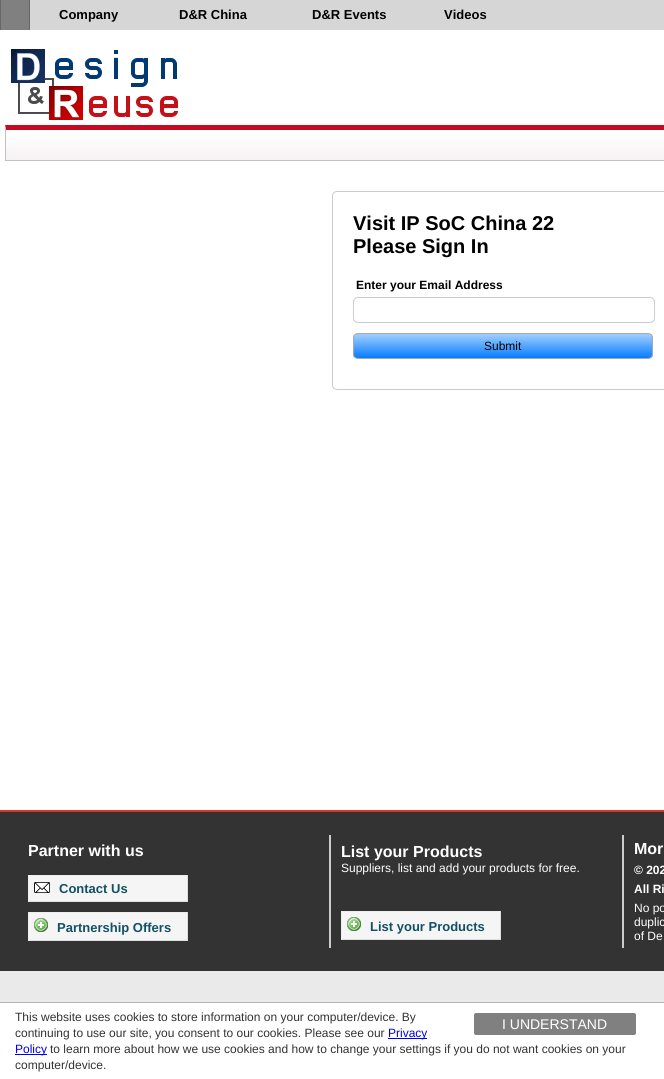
#include <cairo/cairo.h>
#include <math.h>
#include <stddef.h>


static void rounded_rect(cairo_t *cr, double x, double y, double w, double h, double r) {
  cairo_new_sub_path(cr);
  cairo_arc(cr, x + w - r, y + h - r, r, 0, M_PI / 2);
  cairo_arc(cr, x + r, y + h - r, r, M_PI / 2, M_PI);
  cairo_arc(cr, x + r, y + r, r, M_PI, 1.5 * M_PI);
  cairo_arc(cr, x + w - r, y + r, r, 1.5 * M_PI, 2 * M_PI);
  cairo_close_path(cr);
}

static void draw_image(cairo_t *cr, const char *path, double x, double y, double w, double h) {
  cairo_surface_t *image = cairo_image_surface_create_from_png(path);
  cairo_save(cr);
  cairo_set_source_surface(cr, image, x, y);
  cairo_rectangle(cr, x, y, w, h);
  cairo_fill(cr);
  cairo_restore(cr);
  cairo_surface_destroy(image);
}

static void draw(cairo_t *cr) {
  cairo_pattern_t *gradient;
  cairo_set_source_rgb(cr, 234 / 255.0, 234 / 255.0, 234 / 255.0);
  cairo_paint(cr);
  cairo_set_source_rgb(cr, 1, 1, 1);
  cairo_rectangle(cr, 0, 30, 664, 780);
  cairo_fill(cr);
  cairo_set_source_rgb(cr, 128 / 255.0, 128 / 255.0, 128 / 255.0);
  cairo_rectangle(cr, 1, 0, 28, 30);
  cairo_fill(cr);
  cairo_set_source_rgb(cr, 102 / 255.0, 102 / 255.0, 102 / 255.0);
  cairo_rectangle(cr, 29, 0, 1, 30);
  cairo_fill(cr);
  cairo_rectangle(cr, 0, 0, 1, 30);
  cairo_fill(cr);
  cairo_set_source_rgb(cr, 214 / 255.0, 214 / 255.0, 214 / 255.0);
  cairo_rectangle(cr, 30, 0, 634, 30);
  cairo_fill(cr);
  draw_image(cr, "images/1.png", 11, 49, 168, 71);
  draw_image(cr, "images/2.png", 6, 130, 658, 30);
  cairo_set_source_rgb(cr, 198 / 255.0, 10 / 255.0, 34 / 255.0);
  cairo_new_path(cr);
  cairo_move_to(cr, 5, 125);
  cairo_line_to(cr, 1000, 125);
  cairo_line_to(cr, 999, 130);
  cairo_line_to(cr, 6, 130);
  cairo_close_path(cr);
  cairo_fill(cr);
  cairo_set_source_rgb(cr, 193 / 255.0, 193 / 255.0, 193 / 255.0);
  cairo_rectangle(cr, 5, 160, 659, 1);
  cairo_fill(cr);
  cairo_new_path(cr);
  cairo_move_to(cr, 5, 161);
  cairo_line_to(cr, 5, 125);
  cairo_line_to(cr, 6, 130);
  cairo_line_to(cr, 6, 160);
  cairo_close_path(cr);
  cairo_fill(cr);
  rounded_rect(cr, 332.5, 191.5, 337, 198, 4.5);
  cairo_set_source_rgb(cr, 204 / 255.0, 204 / 255.0, 204 / 255.0);
  cairo_set_line_width(cr, 1);
  cairo_stroke(cr);
  rounded_rect(cr, 353.5, 297.5, 301, 25, 4.5);
  cairo_stroke(cr);
  cairo_save(cr);
  rounded_rect(cr, 353, 333, 300, 26, 5);
  cairo_clip(cr);
  gradient = cairo_pattern_create_linear(503, 334, 503, 358);
  cairo_pattern_add_color_stop_rgba(gradient, 0.05, 155 / 255.0, 203 / 255.0, 1, 1);
  cairo_pattern_add_color_stop_rgba(gradient, 1, 6 / 255.0, 124 / 255.0, 1, 1);
  cairo_set_source(cr, gradient);
  cairo_pattern_destroy(gradient);
  cairo_rectangle(cr, 353, 334, 300, 24);
  cairo_fill(cr);
  cairo_restore(cr);
  rounded_rect(cr, 353.5, 333.5, 299, 25, 4.5);
  cairo_set_source_rgb(cr, 170 / 255.0, 170 / 255.0, 170 / 255.0);
  cairo_stroke(cr);
  cairo_set_source_rgb(cr, 51 / 255.0, 51 / 255.0, 51 / 255.0);
  cairo_rectangle(cr, 0, 812, 664, 159);
  cairo_fill(cr);
  cairo_set_source_rgb(cr, 215 / 255.0, 55 / 255.0, 42 / 255.0);
  cairo_rectangle(cr, 0, 810, 664, 2);
  cairo_fill(cr);
  cairo_set_source_rgb(cr, 245 / 255.0, 245 / 255.0, 245 / 255.0);
  cairo_rectangle(cr, 29, 876, 158, 25);
  cairo_fill(cr);
  cairo_set_source_rgb(cr, 238 / 255.0, 238 / 255.0, 238 / 255.0);
  cairo_rectangle(cr, 28, 875, 160, 1);
  cairo_fill(cr);
  cairo_set_source_rgb(cr, 222 / 255.0, 222 / 255.0, 222 / 255.0);
  cairo_rectangle(cr, 187, 875, 1, 27);
  cairo_fill(cr);
  cairo_rectangle(cr, 28, 901, 160, 1);
  cairo_fill(cr);
  cairo_set_source_rgb(cr, 238 / 255.0, 238 / 255.0, 238 / 255.0);
  cairo_rectangle(cr, 28, 875, 1, 27);
  cairo_fill(cr);
  draw_image(cr, "images/3.png", 34, 882, 16, 11);
  cairo_set_source_rgb(cr, 245 / 255.0, 245 / 255.0, 245 / 255.0);
  cairo_rectangle(cr, 29, 913, 158, 27);
  cairo_fill(cr);
  cairo_set_source_rgb(cr, 238 / 255.0, 238 / 255.0, 238 / 255.0);
  cairo_rectangle(cr, 28, 912, 160, 1);
  cairo_fill(cr);
  cairo_set_source_rgb(cr, 222 / 255.0, 222 / 255.0, 222 / 255.0);
  cairo_rectangle(cr, 187, 912, 1, 29);
  cairo_fill(cr);
  cairo_rectangle(cr, 28, 940, 160, 1);
  cairo_fill(cr);
  cairo_set_source_rgb(cr, 238 / 255.0, 238 / 255.0, 238 / 255.0);
  cairo_rectangle(cr, 28, 912, 1, 29);
  cairo_fill(cr);
  draw_image(cr, "images/4.png", 34, 918, 14, 14);
  cairo_set_source_rgb(cr, 204 / 255.0, 204 / 255.0, 204 / 255.0);
  cairo_rectangle(cr, 329, 835, 2, 113);
  cairo_fill(cr);
  cairo_set_source_rgb(cr, 245 / 255.0, 245 / 255.0, 245 / 255.0);
  cairo_rectangle(cr, 342, 912, 158, 27);
  cairo_fill(cr);
  cairo_set_source_rgb(cr, 238 / 255.0, 238 / 255.0, 238 / 255.0);
  cairo_rectangle(cr, 341, 911, 160, 1);
  cairo_fill(cr);
  cairo_set_source_rgb(cr, 222 / 255.0, 222 / 255.0, 222 / 255.0);
  cairo_rectangle(cr, 500, 911, 1, 29);
  cairo_fill(cr);
  cairo_rectangle(cr, 341, 939, 160, 1);
  cairo_fill(cr);
  cairo_set_source_rgb(cr, 238 / 255.0, 238 / 255.0, 238 / 255.0);
  cairo_rectangle(cr, 341, 911, 1, 29);
  cairo_fill(cr);
  draw_image(cr, "images/4.png", 347, 917, 14, 14);
  cairo_set_source_rgb(cr, 204 / 255.0, 204 / 255.0, 204 / 255.0);
  cairo_rectangle(cr, 622, 835, 2, 113);
  cairo_fill(cr);
  cairo_set_source_rgb(cr, 1, 1, 1);
  cairo_rectangle(cr, 0, 1003, 664, 76);
  cairo_fill(cr);
  cairo_set_source_rgb(cr, 179 / 255.0, 179 / 255.0, 179 / 255.0);
  cairo_rectangle(cr, 0, 1002, 664, 1);
  cairo_fill(cr);
  cairo_set_source_rgb(cr, 0, 0, 238 / 255.0);
  cairo_rectangle(cr, 388, 1038, 39, 1);
  cairo_fill(cr);
  cairo_rectangle(cr, 15, 1054, 32, 1);
  cairo_fill(cr);
  cairo_set_source_rgb(cr, 128 / 255.0, 128 / 255.0, 128 / 255.0);
  rounded_rect(cr, 474, 1013, 162, 22, 2);
  cairo_fill(cr);
  cairo_select_font_face(cr, "Liberation Sans", CAIRO_FONT_SLANT_NORMAL, CAIRO_FONT_WEIGHT_BOLD);
  cairo_set_font_size(cr, 13);
  cairo_set_source_rgb(cr, 0, 0, 0);
  cairo_move_to(cr, 59, 19);
  cairo_show_text(cr, "Company");
  cairo_move_to(cr, 179, 19);
  cairo_show_text(cr, "D&R China");
  cairo_move_to(cr, 312, 19);
  cairo_show_text(cr, "D&R Events");
  cairo_move_to(cr, 444, 19);
  cairo_show_text(cr, "Videos");
  cairo_set_font_size(cr, 20);
  cairo_move_to(cr, 353, 230);
  cairo_show_text(cr, "Visit IP SoC China 22");
  cairo_move_to(cr, 353, 253);
  cairo_show_text(cr, "Please Sign In");
  cairo_set_font_size(cr, 12);
  cairo_move_to(cr, 356, 289);
  cairo_show_text(cr, "Enter your Email Address");
  cairo_select_font_face(cr, "Liberation Sans", CAIRO_FONT_SLANT_NORMAL, CAIRO_FONT_WEIGHT_NORMAL);
  cairo_move_to(cr, 484, 350);
  cairo_show_text(cr, "Submit");
  cairo_select_font_face(cr, "Liberation Sans", CAIRO_FONT_SLANT_NORMAL, CAIRO_FONT_WEIGHT_BOLD);
  cairo_set_font_size(cr, 16);
  cairo_set_source_rgb(cr, 1, 1, 1);
  cairo_move_to(cr, 28, 856);
  cairo_show_text(cr, "Partner with us");
  cairo_set_font_size(cr, 13);
  cairo_set_source_rgb(cr, 18 / 255.0, 81 / 255.0, 99 / 255.0);
  cairo_move_to(cr, 59, 893);
  cairo_show_text(cr, "Contact Us");
  cairo_move_to(cr, 57, 932);
  cairo_show_text(cr, "Partnership Offers");
  cairo_set_font_size(cr, 16);
  cairo_set_source_rgb(cr, 1, 1, 1);
  cairo_move_to(cr, 341, 857);
  cairo_show_text(cr, "List your Products");
  cairo_select_font_face(cr, "Liberation Sans", CAIRO_FONT_SLANT_NORMAL, CAIRO_FONT_WEIGHT_NORMAL);
  cairo_set_font_size(cr, 12);
  cairo_move_to(cr, 341, 872);
  cairo_show_text(cr, "Suppliers, list and add your products for free.");
  cairo_select_font_face(cr, "Liberation Sans", CAIRO_FONT_SLANT_NORMAL, CAIRO_FONT_WEIGHT_BOLD);
  cairo_set_font_size(cr, 13);
  cairo_set_source_rgb(cr, 18 / 255.0, 81 / 255.0, 99 / 255.0);
  cairo_move_to(cr, 370, 931);
  cairo_show_text(cr, "List your Products");
  cairo_set_font_size(cr, 16);
  cairo_set_source_rgb(cr, 1, 1, 1);
  cairo_move_to(cr, 634, 854);
  cairo_show_text(cr, "Mor");
  cairo_set_font_size(cr, 12);
  cairo_move_to(cr, 634, 874);
  cairo_show_text(cr, "© 202");
  cairo_move_to(cr, 634, 893);
  cairo_show_text(cr, "All Ri");
  cairo_select_font_face(cr, "Liberation Sans", CAIRO_FONT_SLANT_NORMAL, CAIRO_FONT_WEIGHT_NORMAL);
  cairo_move_to(cr, 634, 912);
  cairo_show_text(cr, "No po");
  cairo_move_to(cr, 634, 926);
  cairo_show_text(cr, "duplic");
  cairo_move_to(cr, 634, 940);
  cairo_show_text(cr, "of De");
  cairo_set_source_rgb(cr, 51 / 255.0, 51 / 255.0, 51 / 255.0);
  cairo_move_to(cr, 15, 1021);
  cairo_show_text(cr, "This website uses cookies to store information on your computer/device. By");
  cairo_move_to(cr, 15, 1037);
  cairo_show_text(cr, "continuing to use our site, you consent to our cookies. Please see our");
  cairo_set_source_rgb(cr, 0, 0, 238 / 255.0);
  cairo_move_to(cr, 388, 1037);
  cairo_show_text(cr, "Privacy");
  cairo_move_to(cr, 15, 1053);
  cairo_show_text(cr, "Policy");
  cairo_set_source_rgb(cr, 51 / 255.0, 51 / 255.0, 51 / 255.0);
  cairo_move_to(cr, 50, 1053);
  cairo_show_text(cr, "to learn more about how we use cookies and how to change your settings if you do not want cookies on your");
  cairo_move_to(cr, 15, 1069);
  cairo_show_text(cr, "computer/device.");
  cairo_set_font_size(cr, 14);
  cairo_set_source_rgb(cr, 1, 1, 1);
  cairo_move_to(cr, 502, 1029);
  cairo_show_text(cr, "I UNDERSTAND");
}

int main(void) {
  cairo_surface_t *surface = cairo_image_surface_create(CAIRO_FORMAT_RGB24, 664, 1079);
  cairo_t *cr = cairo_create(surface);
  cairo_font_options_t *options = cairo_font_options_create();
  cairo_font_options_set_hint_metrics(options, CAIRO_HINT_METRICS_OFF);
  cairo_font_options_set_hint_style(options, CAIRO_HINT_STYLE_NONE);
  cairo_set_font_options(cr, options);
  cairo_set_miter_limit(cr, 4);
  draw(cr);
  cairo_surface_write_to_png(surface, "out.png");
  cairo_font_options_destroy(options);
  cairo_destroy(cr);
  cairo_surface_destroy(surface);
  return 0;
}
